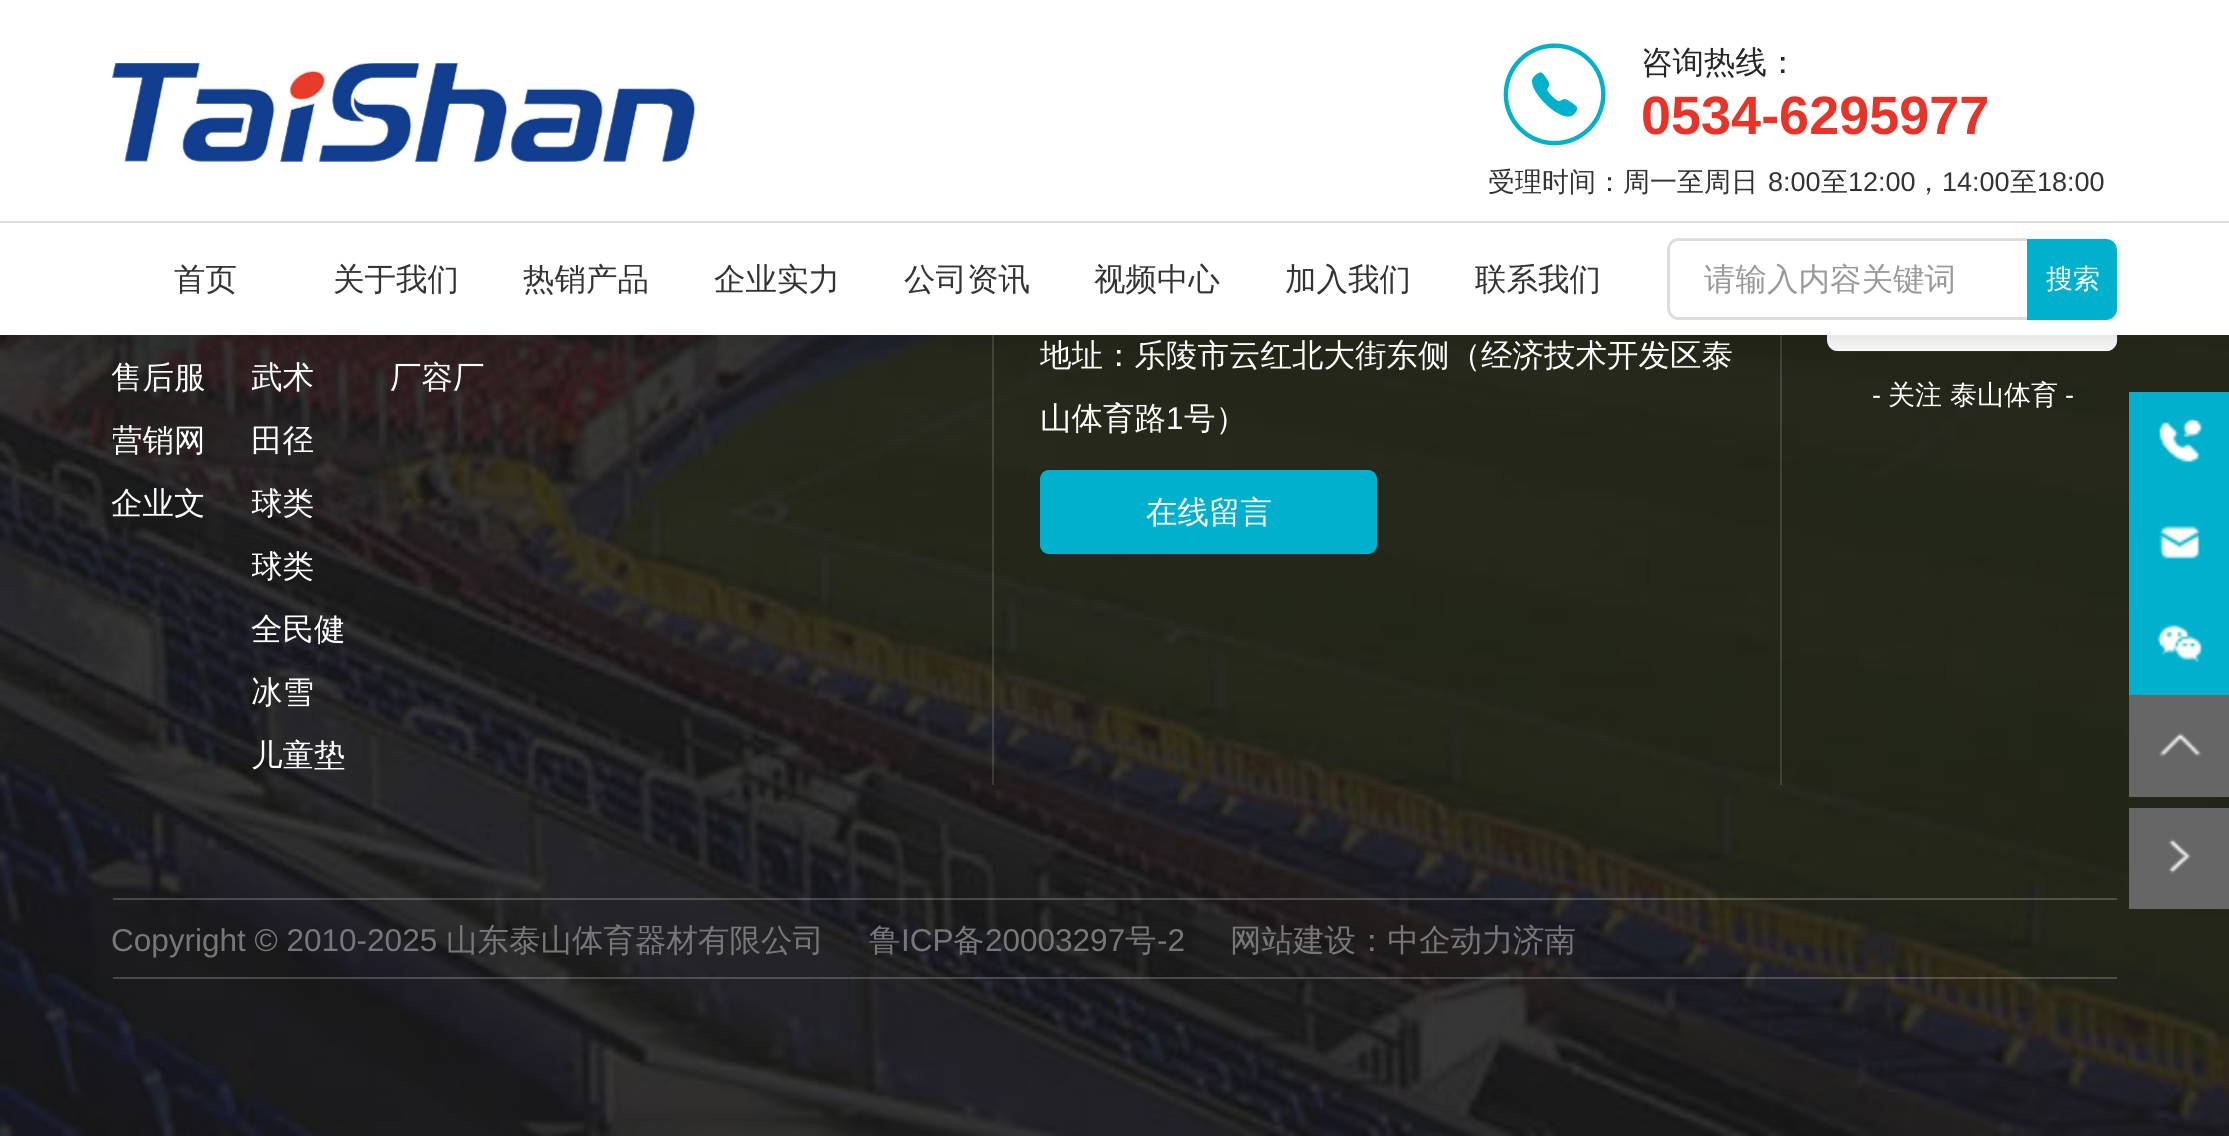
#include <cairo/cairo.h>
#include <math.h>
#include <stddef.h>


static void rounded_rect(cairo_t *cr, double x, double y, double w, double h, double r) {
  cairo_new_sub_path(cr);
  cairo_arc(cr, x + w - r, y + h - r, r, 0, M_PI / 2);
  cairo_arc(cr, x + r, y + h - r, r, M_PI / 2, M_PI);
  cairo_arc(cr, x + r, y + r, r, M_PI, 1.5 * M_PI);
  cairo_arc(cr, x + w - r, y + r, r, 1.5 * M_PI, 2 * M_PI);
  cairo_close_path(cr);
}

static void draw_shadow(cairo_t *cr, double x, double y, double w, double h, double r, double blur, double alpha) {
  cairo_push_group_with_content(cr, CAIRO_CONTENT_ALPHA);
  cairo_set_operator(cr, CAIRO_OPERATOR_SOURCE);
  for (int i = 15; i >= -15 && fmin(w, h) + blur * i / 3 > 0; i -= 2) {
    double e = blur * i / 6;
    cairo_set_source_rgba(cr, 0, 0, 0, alpha * erfc((i - 1) / 8.5) / 2);
    rounded_rect(cr, x - e, y - e, w + 2 * e, h + 2 * e, fmax(0, fmin(r + e + blur * .6, fmin(w, h) / 2 + e)));
    cairo_fill(cr);
  }
  cairo_pattern_t *soft = cairo_pop_group(cr);
  cairo_mask(cr, soft);
  cairo_pattern_destroy(soft);
}

static void draw_image(cairo_t *cr, const char *path, double x, double y, double w, double h) {
  cairo_surface_t *image = cairo_image_surface_create_from_png(path);
  cairo_save(cr);
  cairo_set_source_surface(cr, image, x, y);
  cairo_rectangle(cr, x, y, w, h);
  cairo_fill(cr);
  cairo_restore(cr);
  cairo_surface_destroy(image);
}

static void draw(cairo_t *cr) {
  cairo_set_source_rgb(cr, 1, 1, 1);
  cairo_paint(cr);
  draw_image(cr, "images/3.png", 0, 335, 2229, 801);
  cairo_set_source_rgba(cr, 1, 1, 1, 0.14);
  cairo_rectangle(cr, 992, 335, 2, 450);
  cairo_fill(cr);
  cairo_set_source_rgba(cr, 1, 1, 1, 0.13);
  cairo_rectangle(cr, 1780, 335, 2, 450);
  cairo_fill(cr);
  draw_image(cr, "images/4.png", 1827, 335, 291, 17);
  cairo_set_source_rgb(cr, 0, 0, 0);
  draw_shadow(cr, 0, 11, 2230, 336, 0, 11, 0.1);
  cairo_set_source_rgb(cr, 1, 1, 1);
  cairo_rectangle(cr, 0, 0, 2229, 335);
  cairo_fill(cr);
  draw_image(cr, "images/1.png", 112, 63, 584, 99);
  draw_image(cr, "images/2.png", 1503, 43, 103, 103);
  cairo_set_source_rgb(cr, 221 / 255.0, 221 / 255.0, 221 / 255.0);
  cairo_rectangle(cr, 0, 221, 2229, 2);
  cairo_fill(cr);
  cairo_set_fill_rule(cr, CAIRO_FILL_RULE_EVEN_ODD);
  cairo_new_path(cr);
  cairo_move_to(cr, 1678, 238);
  cairo_line_to(cr, 2027, 238);
  cairo_line_to(cr, 2027, 320);
  cairo_line_to(cr, 1678, 320);
  cairo_curve_to(cr, 1672, 320, 1667, 314, 1667, 308);
  cairo_line_to(cr, 1667, 250);
  cairo_curve_to(cr, 1667, 244, 1672, 238, 1678, 238);
  cairo_close_path(cr);
  cairo_move_to(cr, 1678, 241);
  cairo_line_to(cr, 2027, 241);
  cairo_line_to(cr, 2027, 317);
  cairo_line_to(cr, 1678, 317);
  cairo_curve_to(cr, 1674, 317, 1670, 313, 1670, 308);
  cairo_line_to(cr, 1670, 250);
  cairo_curve_to(cr, 1670, 245, 1674, 241, 1678, 241);
  cairo_close_path(cr);
  cairo_fill(cr);
  cairo_set_source_rgb(cr, 0, 176 / 255.0, 205 / 255.0);
  cairo_new_path(cr);
  cairo_move_to(cr, 2027, 239);
  cairo_line_to(cr, 2106, 239);
  cairo_curve_to(cr, 2112, 239, 2117, 244, 2117, 250);
  cairo_line_to(cr, 2117, 309);
  cairo_curve_to(cr, 2117, 315, 2112, 320, 2106, 320);
  cairo_line_to(cr, 2027, 320);
  cairo_close_path(cr);
  cairo_fill(cr);
  rounded_rect(cr, 1040, 470, 337, 84, 9);
  cairo_fill(cr);
  cairo_set_source_rgba(cr, 1, 1, 1, 0.2);
  cairo_rectangle(cr, 113, 898, 2004, 2);
  cairo_fill(cr);
  cairo_rectangle(cr, 113, 977, 2004, 2);
  cairo_fill(cr);
  cairo_set_source_rgb(cr, 0, 176 / 255.0, 205 / 255.0);
  cairo_rectangle(cr, 2129, 392, 100, 303);
  cairo_fill(cr);
  draw_image(cr, "images/5.png", 2159, 418, 44, 45);
  draw_image(cr, "images/6.png", 2159, 525, 42, 34);
  draw_image(cr, "images/7.png", 2157, 624, 47, 39);
  cairo_set_source_rgb(cr, 102 / 255.0, 102 / 255.0, 102 / 255.0);
  cairo_rectangle(cr, 2129, 695, 100, 102);
  cairo_fill(cr);
  draw_image(cr, "images/8.png", 2159, 732, 43, 25);
  cairo_rectangle(cr, 2129, 808, 100, 101);
  cairo_fill(cr);
  draw_image(cr, "images/9.png", 2168, 838, 23, 36);
  cairo_select_font_face(cr, "WenQuanYi Zen Hei Medium", CAIRO_FONT_SLANT_NORMAL, CAIRO_FONT_WEIGHT_NORMAL);
  cairo_set_font_size(cr, 31.5);
  cairo_set_source_rgb(cr, 37 / 255.0, 37 / 255.0, 37 / 255.0);
  cairo_move_to(cr, 1641, 73);
  cairo_show_text(cr, "咨询热线：");
  cairo_select_font_face(cr, "Liberation Sans", CAIRO_FONT_SLANT_NORMAL, CAIRO_FONT_WEIGHT_BOLD);
  cairo_set_font_size(cr, 54);
  cairo_set_source_rgb(cr, 232 / 255.0, 52 / 255.0, 40 / 255.0);
  cairo_move_to(cr, 1641, 134);
  cairo_show_text(cr, "0534-6295977");
  cairo_select_font_face(cr, "WenQuanYi Zen Hei Medium", CAIRO_FONT_SLANT_NORMAL, CAIRO_FONT_WEIGHT_NORMAL);
  cairo_set_font_size(cr, 27);
  cairo_set_source_rgb(cr, 51 / 255.0, 51 / 255.0, 51 / 255.0);
  cairo_move_to(cr, 1488, 191);
  cairo_show_text(cr, "受理时间：周一至周日");
  cairo_select_font_face(cr, "Liberation Sans", CAIRO_FONT_SLANT_NORMAL, CAIRO_FONT_WEIGHT_NORMAL);
  cairo_move_to(cr, 1768, 191);
  cairo_show_text(cr, "8:00");
  cairo_select_font_face(cr, "WenQuanYi Zen Hei Medium", CAIRO_FONT_SLANT_NORMAL, CAIRO_FONT_WEIGHT_NORMAL);
  cairo_move_to(cr, 1821, 191);
  cairo_show_text(cr, "至");
  cairo_select_font_face(cr, "Liberation Sans", CAIRO_FONT_SLANT_NORMAL, CAIRO_FONT_WEIGHT_NORMAL);
  cairo_move_to(cr, 1848, 191);
  cairo_show_text(cr, "12:00");
  cairo_select_font_face(cr, "WenQuanYi Zen Hei Medium", CAIRO_FONT_SLANT_NORMAL, CAIRO_FONT_WEIGHT_NORMAL);
  cairo_move_to(cr, 1915, 191);
  cairo_show_text(cr, "，");
  cairo_select_font_face(cr, "Liberation Sans", CAIRO_FONT_SLANT_NORMAL, CAIRO_FONT_WEIGHT_NORMAL);
  cairo_move_to(cr, 1942, 191);
  cairo_show_text(cr, "14:00");
  cairo_select_font_face(cr, "WenQuanYi Zen Hei Medium", CAIRO_FONT_SLANT_NORMAL, CAIRO_FONT_WEIGHT_NORMAL);
  cairo_move_to(cr, 2010, 191);
  cairo_show_text(cr, "至");
  cairo_select_font_face(cr, "Liberation Sans", CAIRO_FONT_SLANT_NORMAL, CAIRO_FONT_WEIGHT_NORMAL);
  cairo_move_to(cr, 2037, 191);
  cairo_show_text(cr, "18:00");
  cairo_select_font_face(cr, "WenQuanYi Zen Hei Medium", CAIRO_FONT_SLANT_NORMAL, CAIRO_FONT_WEIGHT_NORMAL);
  cairo_set_font_size(cr, 31.5);
  cairo_move_to(cr, 174, 290);
  cairo_show_text(cr, "首页");
  cairo_move_to(cr, 333, 290);
  cairo_show_text(cr, "关于我们");
  cairo_move_to(cr, 523, 290);
  cairo_show_text(cr, "热销产品");
  cairo_move_to(cr, 714, 290);
  cairo_show_text(cr, "企业实力");
  cairo_move_to(cr, 904, 290);
  cairo_show_text(cr, "公司资讯");
  cairo_move_to(cr, 1094, 290);
  cairo_show_text(cr, "视频中心");
  cairo_move_to(cr, 1285, 290);
  cairo_show_text(cr, "加入我们");
  cairo_move_to(cr, 1475, 290);
  cairo_show_text(cr, "联系我们");
  cairo_set_source_rgb(cr, 153 / 255.0, 153 / 255.0, 153 / 255.0);
  cairo_move_to(cr, 1704, 290);
  cairo_show_text(cr, "请输入内容关键词");
  cairo_set_font_size(cr, 27);
  cairo_set_source_rgb(cr, 1, 1, 1);
  cairo_move_to(cr, 2046, 288);
  cairo_show_text(cr, "搜索");
  cairo_set_font_size(cr, 31.5);
  cairo_move_to(cr, 111, 388);
  cairo_show_text(cr, "售后服");
  cairo_save(cr);
  cairo_set_fill_rule(cr, CAIRO_FILL_RULE_WINDING);
  cairo_rectangle(cr, 113, 407, 117, 63);
  cairo_clip(cr);
  cairo_move_to(cr, 111, 451);
  cairo_show_text(cr, "营销网");
  cairo_restore(cr);
  cairo_move_to(cr, 111, 514);
  cairo_show_text(cr, "企业文");
  cairo_save(cr);
  cairo_set_fill_rule(cr, CAIRO_FILL_RULE_WINDING);
  cairo_rectangle(cr, 252, 344, 117, 63);
  cairo_clip(cr);
  cairo_move_to(cr, 251, 388);
  cairo_show_text(cr, "武术");
  cairo_restore(cr);
  cairo_move_to(cr, 251, 451);
  cairo_show_text(cr, "田径");
  cairo_save(cr);
  cairo_set_fill_rule(cr, CAIRO_FILL_RULE_WINDING);
  cairo_rectangle(cr, 252, 470, 117, 63);
  cairo_clip(cr);
  cairo_move_to(cr, 251, 514);
  cairo_show_text(cr, "球类");
  cairo_restore(cr);
  cairo_save(cr);
  cairo_set_fill_rule(cr, CAIRO_FILL_RULE_WINDING);
  cairo_rectangle(cr, 252, 533, 117, 63);
  cairo_clip(cr);
  cairo_move_to(cr, 251, 577);
  cairo_show_text(cr, "球类");
  cairo_restore(cr);
  cairo_move_to(cr, 251, 640);
  cairo_show_text(cr, "全民健");
  cairo_move_to(cr, 251, 703);
  cairo_show_text(cr, "冰雪");
  cairo_move_to(cr, 251, 766);
  cairo_show_text(cr, "儿童垫");
  cairo_move_to(cr, 390, 388);
  cairo_show_text(cr, "厂容厂");
  cairo_move_to(cr, 1040, 366);
  cairo_show_text(cr, "地址：乐陵市云红北大街东侧（经济技术开发区泰");
  cairo_move_to(cr, 1040, 429);
  cairo_show_text(cr, "山体育路");
  cairo_select_font_face(cr, "Liberation Sans", CAIRO_FONT_SLANT_NORMAL, CAIRO_FONT_WEIGHT_NORMAL);
  cairo_move_to(cr, 1166, 429);
  cairo_show_text(cr, "1");
  cairo_select_font_face(cr, "WenQuanYi Zen Hei Medium", CAIRO_FONT_SLANT_NORMAL, CAIRO_FONT_WEIGHT_NORMAL);
  cairo_move_to(cr, 1184, 429);
  cairo_show_text(cr, "号）");
  cairo_move_to(cr, 1146, 523);
  cairo_show_text(cr, "在线留言");
  cairo_select_font_face(cr, "Liberation Sans", CAIRO_FONT_SLANT_NORMAL, CAIRO_FONT_WEIGHT_NORMAL);
  cairo_set_font_size(cr, 27);
  cairo_move_to(cr, 1872, 404);
  cairo_show_text(cr, "-");
  cairo_select_font_face(cr, "WenQuanYi Zen Hei Medium", CAIRO_FONT_SLANT_NORMAL, CAIRO_FONT_WEIGHT_NORMAL);
  cairo_move_to(cr, 1888, 404);
  cairo_show_text(cr, "关注 泰山体育");
  cairo_select_font_face(cr, "Liberation Sans", CAIRO_FONT_SLANT_NORMAL, CAIRO_FONT_WEIGHT_NORMAL);
  cairo_move_to(cr, 2065, 404);
  cairo_show_text(cr, "-");
  cairo_set_font_size(cr, 31.5);
  cairo_set_source_rgb(cr, 119 / 255.0, 119 / 255.0, 121 / 255.0);
  cairo_move_to(cr, 111, 951);
  cairo_show_text(cr, "Copyright © 2010-2025");
  cairo_select_font_face(cr, "WenQuanYi Zen Hei Medium", CAIRO_FONT_SLANT_NORMAL, CAIRO_FONT_WEIGHT_NORMAL);
  cairo_move_to(cr, 446, 951);
  cairo_show_text(cr, "山东泰山体育器材有限公司");
  cairo_move_to(cr, 869, 951);
  cairo_show_text(cr, "鲁");
  cairo_select_font_face(cr, "Liberation Sans", CAIRO_FONT_SLANT_NORMAL, CAIRO_FONT_WEIGHT_NORMAL);
  cairo_move_to(cr, 901, 951);
  cairo_show_text(cr, "ICP");
  cairo_select_font_face(cr, "WenQuanYi Zen Hei Medium", CAIRO_FONT_SLANT_NORMAL, CAIRO_FONT_WEIGHT_NORMAL);
  cairo_move_to(cr, 953, 951);
  cairo_show_text(cr, "备");
  cairo_select_font_face(cr, "Liberation Sans", CAIRO_FONT_SLANT_NORMAL, CAIRO_FONT_WEIGHT_NORMAL);
  cairo_move_to(cr, 985, 951);
  cairo_show_text(cr, "20003297");
  cairo_select_font_face(cr, "WenQuanYi Zen Hei Medium", CAIRO_FONT_SLANT_NORMAL, CAIRO_FONT_WEIGHT_NORMAL);
  cairo_move_to(cr, 1125, 951);
  cairo_show_text(cr, "号");
  cairo_select_font_face(cr, "Liberation Sans", CAIRO_FONT_SLANT_NORMAL, CAIRO_FONT_WEIGHT_NORMAL);
  cairo_move_to(cr, 1157, 951);
  cairo_show_text(cr, "-2");
  cairo_select_font_face(cr, "WenQuanYi Zen Hei Medium", CAIRO_FONT_SLANT_NORMAL, CAIRO_FONT_WEIGHT_NORMAL);
  cairo_move_to(cr, 1230, 951);
  cairo_show_text(cr, "网站建设：中企动力");
  cairo_move_to(cr, 1513, 951);
  cairo_show_text(cr, "济南");
}

int main(void) {
  cairo_surface_t *surface = cairo_image_surface_create(CAIRO_FORMAT_RGB24, 2229, 1136);
  cairo_t *cr = cairo_create(surface);
  cairo_font_options_t *options = cairo_font_options_create();
  cairo_font_options_set_hint_metrics(options, CAIRO_HINT_METRICS_OFF);
  cairo_font_options_set_hint_style(options, CAIRO_HINT_STYLE_NONE);
  cairo_set_font_options(cr, options);
  cairo_set_miter_limit(cr, 4);
  draw(cr);
  cairo_surface_write_to_png(surface, "out.png");
  cairo_font_options_destroy(options);
  cairo_destroy(cr);
  cairo_surface_destroy(surface);
  return 0;
}
